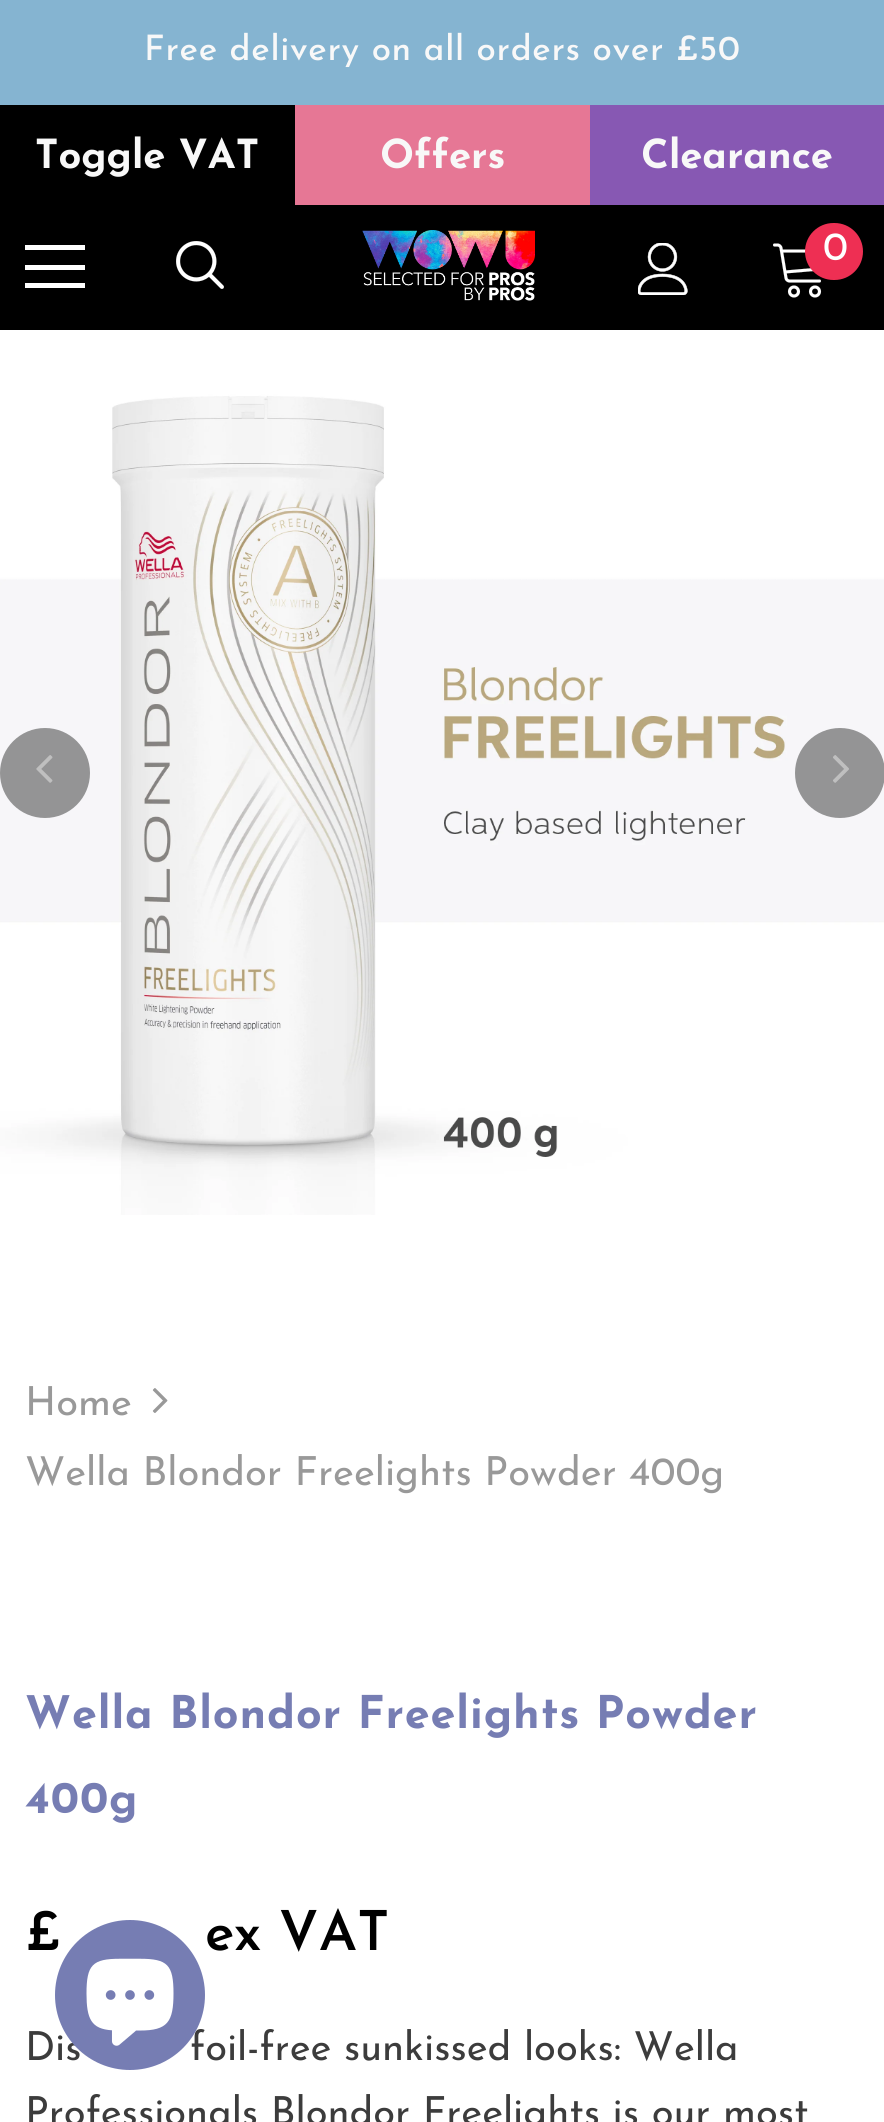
#include <cairo/cairo.h>
#include <math.h>
#include <stddef.h>


static void draw_spaced(cairo_t *cr, double x, double y, const char *s, double letter, double word) {
  cairo_move_to(cr, x, y);
  while (*s) {
    char ch[5] = {0};
    int n = 0;
    do ch[n++] = *s++; while ((*s & 0xC0) == 0x80);
    cairo_show_text(cr, ch);
    cairo_rel_move_to(cr, letter + word * (*ch == ' '), 0);
  }
}

static void rounded_rect(cairo_t *cr, double x, double y, double w, double h, double r) {
  cairo_new_sub_path(cr);
  cairo_arc(cr, x + w - r, y + h - r, r, 0, M_PI / 2);
  cairo_arc(cr, x + r, y + h - r, r, M_PI / 2, M_PI);
  cairo_arc(cr, x + r, y + r, r, M_PI, 1.5 * M_PI);
  cairo_arc(cr, x + w - r, y + r, r, 1.5 * M_PI, 2 * M_PI);
  cairo_close_path(cr);
}

static void draw_image(cairo_t *cr, const char *path, double x, double y, double w, double h) {
  cairo_surface_t *image = cairo_image_surface_create_from_png(path);
  cairo_save(cr);
  cairo_set_source_surface(cr, image, x, y);
  cairo_rectangle(cr, x, y, w, h);
  cairo_fill(cr);
  cairo_restore(cr);
  cairo_surface_destroy(image);
}

static void draw(cairo_t *cr) {
  cairo_set_source_rgb(cr, 1, 1, 1);
  cairo_paint(cr);
  cairo_set_source_rgb(cr, 133 / 255.0, 180 / 255.0, 209 / 255.0);
  cairo_rectangle(cr, 0, 0, 884, 105);
  cairo_fill(cr);
  cairo_set_source_rgb(cr, 0, 0, 0);
  cairo_rectangle(cr, 0, 105, 295, 100);
  cairo_fill(cr);
  cairo_set_source_rgb(cr, 230 / 255.0, 119 / 255.0, 149 / 255.0);
  cairo_rectangle(cr, 295, 105, 295, 100);
  cairo_fill(cr);
  cairo_set_source_rgb(cr, 135 / 255.0, 88 / 255.0, 179 / 255.0);
  cairo_rectangle(cr, 590, 105, 294, 100);
  cairo_fill(cr);
  cairo_set_source_rgb(cr, 0, 0, 0);
  cairo_rectangle(cr, 0, 205, 884, 125);
  cairo_fill(cr);
  cairo_set_source_rgb(cr, 1, 1, 1);
  cairo_rectangle(cr, 25, 245, 60, 5);
  cairo_fill(cr);
  cairo_rectangle(cr, 25, 265, 60, 5);
  cairo_fill(cr);
  cairo_rectangle(cr, 25, 283, 60, 5);
  cairo_fill(cr);
  draw_image(cr, "images/1.png", 176, 241, 48, 48);
  draw_image(cr, "images/2.png", 362, 230, 173, 71);
  draw_image(cr, "images/3.png", 638, 243, 50, 52);
  draw_image(cr, "images/4.png", 773, 243, 49, 55);
  cairo_set_source_rgb(cr, 238 / 255.0, 47 / 255.0, 83 / 255.0);
  rounded_rect(cr, 805, 223, 58, 57, 28.5);
  cairo_fill(cr);
  draw_image(cr, "images/5.png", 0, 330, 884, 885);
  cairo_set_source_rgb(cr, 148 / 255.0, 148 / 255.0, 149 / 255.0);
  cairo_arc(cr, 45, 773, 43.5, 0, 2 * M_PI);
  cairo_fill_preserve(cr);
  cairo_set_line_width(cr, 3);
  cairo_stroke(cr);
  draw_image(cr, "images/6.png", 36, 755, 17, 28);
  cairo_arc(cr, 840, 773, 43.5, 0, 2 * M_PI);
  cairo_fill_preserve(cr);
  cairo_stroke(cr);
  draw_image(cr, "images/7.png", 833, 755, 16, 28);
  draw_image(cr, "images/8.png", 152, 1388, 16, 25);
  cairo_select_font_face(cr, "Josefin Sans Medium", CAIRO_FONT_SLANT_NORMAL, CAIRO_FONT_WEIGHT_NORMAL);
  cairo_set_font_size(cr, 35);
  cairo_set_source_rgb(cr, 248 / 255.0, 248 / 255.0, 248 / 255.0);
  draw_spaced(cr, 144, 60, "Free delivery on all orders over £50", 0.7, 0);
  cairo_select_font_face(cr, "Josefin Sans", CAIRO_FONT_SLANT_NORMAL, CAIRO_FONT_WEIGHT_BOLD);
  cairo_set_font_size(cr, 40);
  cairo_move_to(cr, 35, 168);
  cairo_show_text(cr, "Toggle VAT");
  cairo_move_to(cr, 380, 168);
  cairo_show_text(cr, "Offers");
  cairo_move_to(cr, 641, 168);
  cairo_show_text(cr, "Clearance");
  cairo_select_font_face(cr, "Josefin Sans", CAIRO_FONT_SLANT_NORMAL, CAIRO_FONT_WEIGHT_NORMAL);
  cairo_set_source_rgb(cr, 1, 1, 1);
  cairo_move_to(cr, 823, 260);
  cairo_show_text(cr, "0");
  cairo_set_source_rgb(cr, 153 / 255.0, 153 / 255.0, 153 / 255.0);
  cairo_move_to(cr, 25, 1415);
  cairo_show_text(cr, "Home");
  cairo_move_to(cr, 25, 1485);
  cairo_show_text(cr, "Wella Blondor Freelights Powder 400g");
  cairo_select_font_face(cr, "Josefin Sans", CAIRO_FONT_SLANT_NORMAL, CAIRO_FONT_WEIGHT_BOLD);
  cairo_set_font_size(cr, 45);
  cairo_set_source_rgb(cr, 118 / 255.0, 125 / 255.0, 179 / 255.0);
  draw_spaced(cr, 25, 1728, "Wella Blondor Freelights Powder", 0.9, 0);
  draw_spaced(cr, 25, 1813, "400g", 0.9, 0);
  cairo_select_font_face(cr, "Josefin Sans SemiBold", CAIRO_FONT_SLANT_NORMAL, CAIRO_FONT_WEIGHT_NORMAL);
  cairo_set_font_size(cr, 55);
  cairo_set_source_rgb(cr, 0, 0, 0);
  cairo_move_to(cr, 25, 1950);
  cairo_show_text(cr, "£");
  cairo_move_to(cr, 205, 1950);
  cairo_show_text(cr, "ex VAT");
  cairo_select_font_face(cr, "Josefin Sans", CAIRO_FONT_SLANT_NORMAL, CAIRO_FONT_WEIGHT_NORMAL);
  cairo_set_font_size(cr, 40);
  cairo_set_source_rgb(cr, 60 / 255.0, 60 / 255.0, 60 / 255.0);
  cairo_move_to(cr, 25, 2060);
  cairo_show_text(cr, "Dis");
  cairo_move_to(cr, 190, 2060);
  cairo_show_text(cr, "foil-free sunkissed looks: Wella");
  cairo_move_to(cr, 25, 2125);
  cairo_show_text(cr, "Professionals Blondor Freelights is our most");
  cairo_set_source_rgb(cr, 118 / 255.0, 125 / 255.0, 179 / 255.0);
  cairo_new_path(cr);
  cairo_arc(cr, 130, 1995, 75, 0, 2 * M_PI);
  cairo_fill(cr);
  draw_image(cr, "images/9.png", 86, 1958, 88, 88);
}

int main(void) {
  cairo_surface_t *surface = cairo_image_surface_create(CAIRO_FORMAT_RGB24, 884, 2122);
  cairo_t *cr = cairo_create(surface);
  cairo_font_options_t *options = cairo_font_options_create();
  cairo_font_options_set_hint_metrics(options, CAIRO_HINT_METRICS_OFF);
  cairo_font_options_set_hint_style(options, CAIRO_HINT_STYLE_NONE);
  cairo_set_font_options(cr, options);
  cairo_set_miter_limit(cr, 4);
  draw(cr);
  cairo_surface_write_to_png(surface, "out.png");
  cairo_font_options_destroy(options);
  cairo_destroy(cr);
  cairo_surface_destroy(surface);
  return 0;
}
